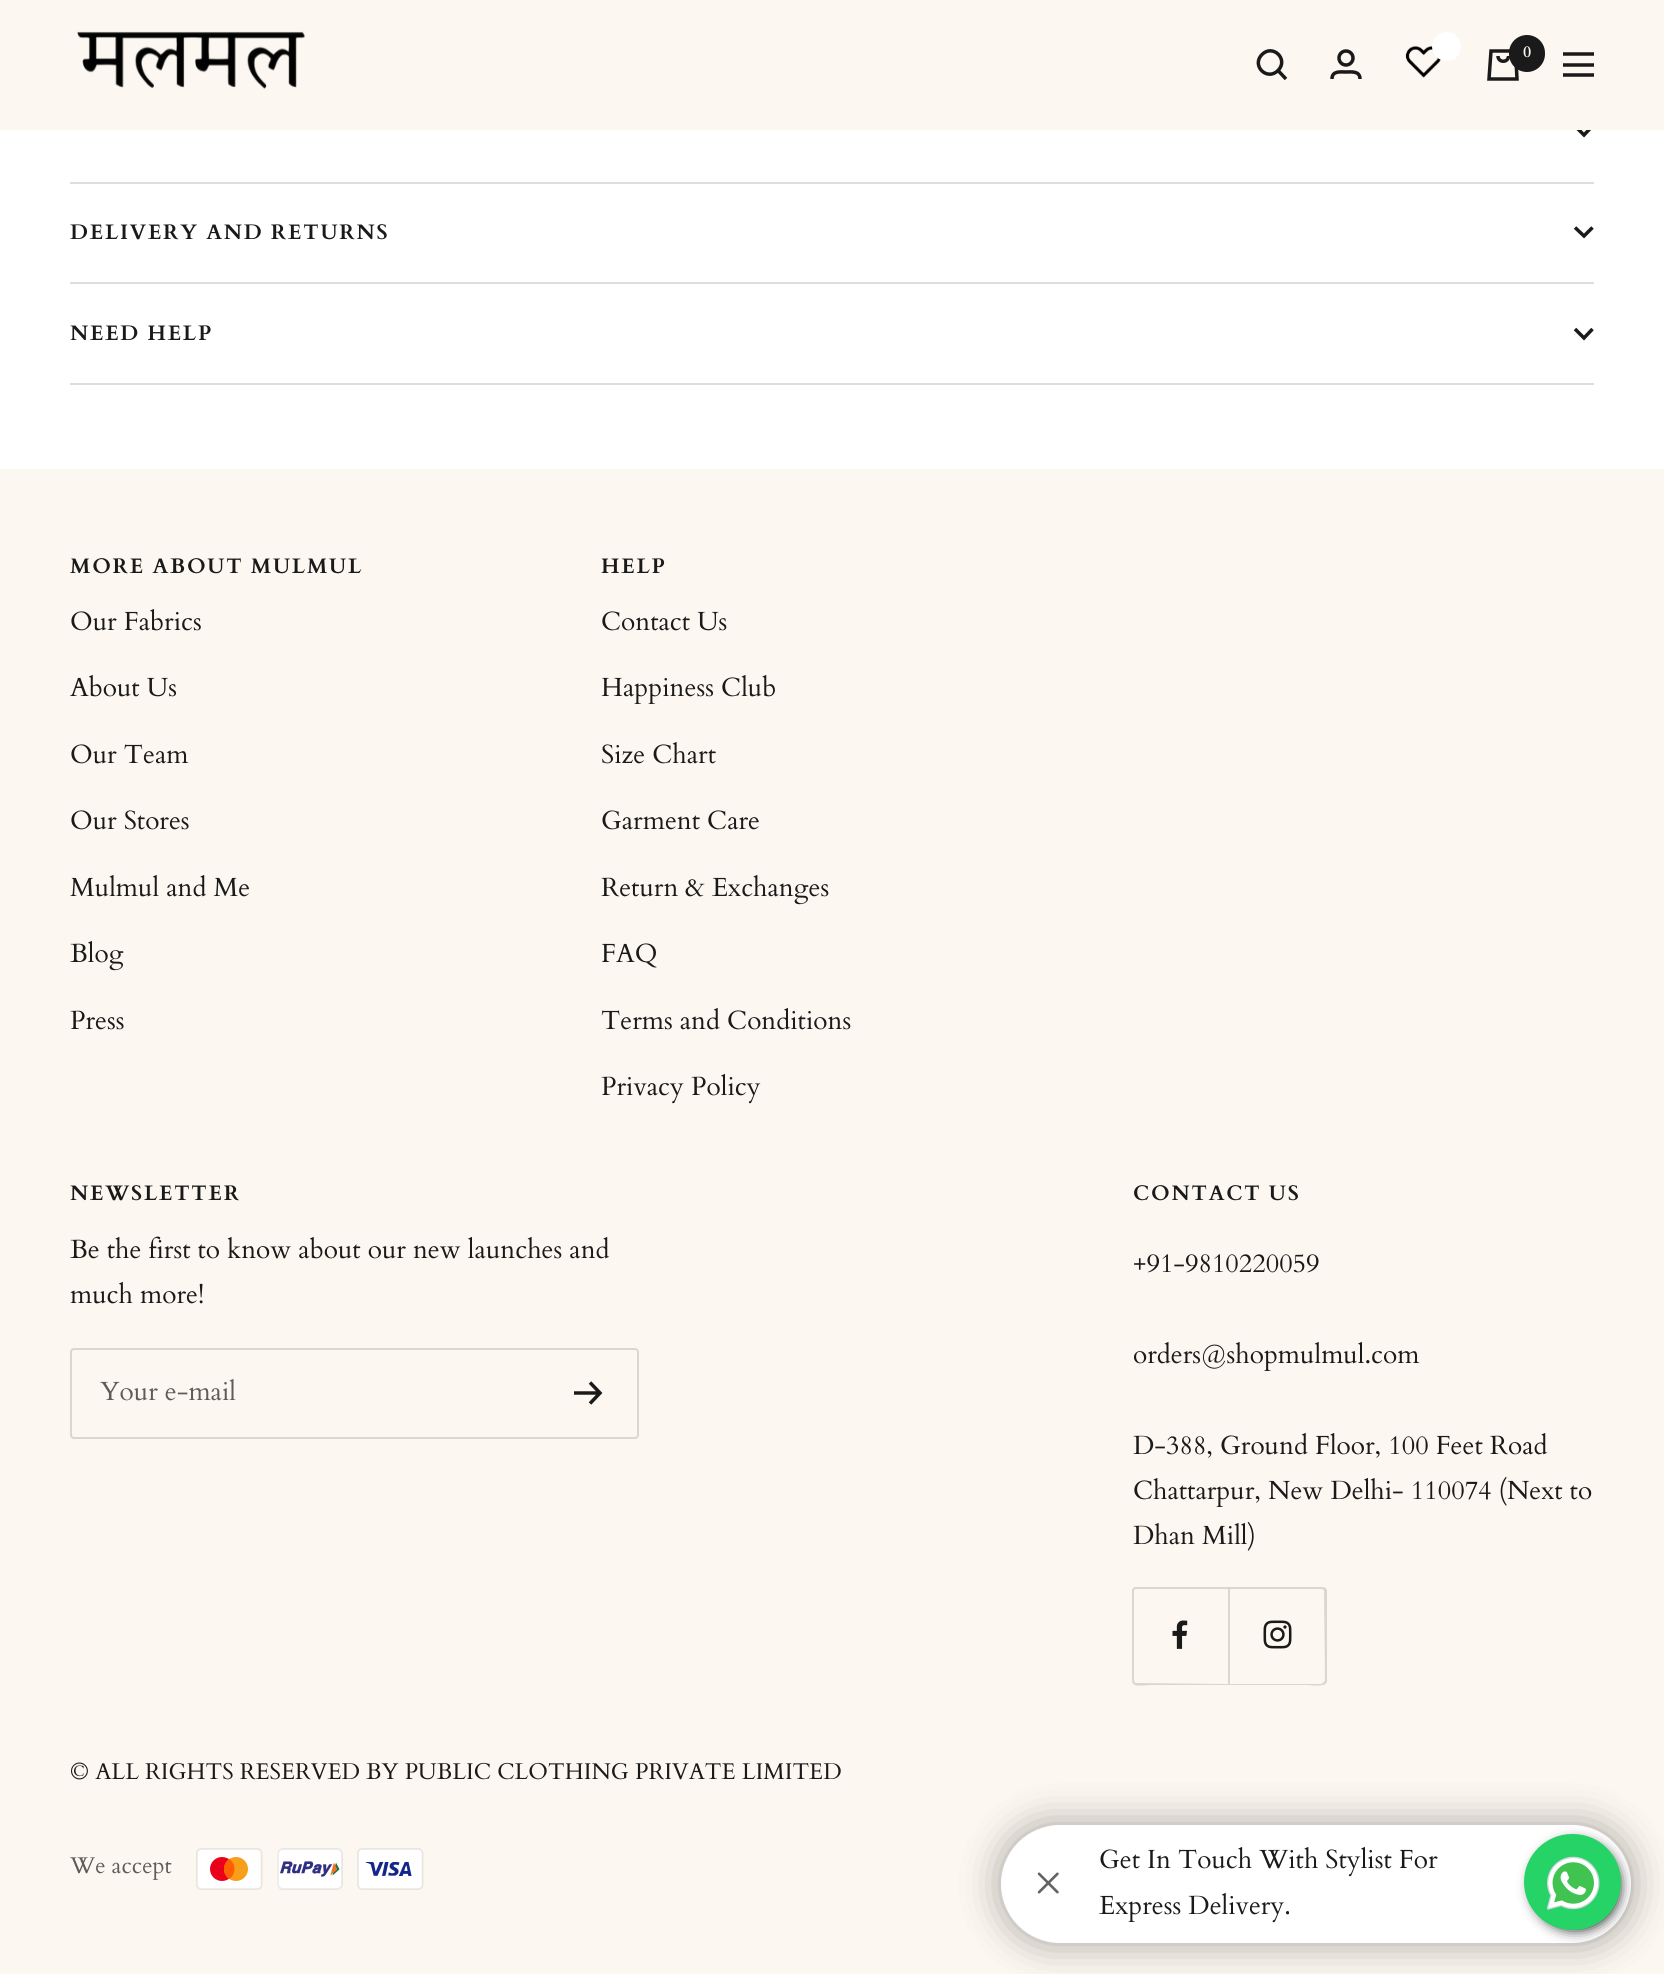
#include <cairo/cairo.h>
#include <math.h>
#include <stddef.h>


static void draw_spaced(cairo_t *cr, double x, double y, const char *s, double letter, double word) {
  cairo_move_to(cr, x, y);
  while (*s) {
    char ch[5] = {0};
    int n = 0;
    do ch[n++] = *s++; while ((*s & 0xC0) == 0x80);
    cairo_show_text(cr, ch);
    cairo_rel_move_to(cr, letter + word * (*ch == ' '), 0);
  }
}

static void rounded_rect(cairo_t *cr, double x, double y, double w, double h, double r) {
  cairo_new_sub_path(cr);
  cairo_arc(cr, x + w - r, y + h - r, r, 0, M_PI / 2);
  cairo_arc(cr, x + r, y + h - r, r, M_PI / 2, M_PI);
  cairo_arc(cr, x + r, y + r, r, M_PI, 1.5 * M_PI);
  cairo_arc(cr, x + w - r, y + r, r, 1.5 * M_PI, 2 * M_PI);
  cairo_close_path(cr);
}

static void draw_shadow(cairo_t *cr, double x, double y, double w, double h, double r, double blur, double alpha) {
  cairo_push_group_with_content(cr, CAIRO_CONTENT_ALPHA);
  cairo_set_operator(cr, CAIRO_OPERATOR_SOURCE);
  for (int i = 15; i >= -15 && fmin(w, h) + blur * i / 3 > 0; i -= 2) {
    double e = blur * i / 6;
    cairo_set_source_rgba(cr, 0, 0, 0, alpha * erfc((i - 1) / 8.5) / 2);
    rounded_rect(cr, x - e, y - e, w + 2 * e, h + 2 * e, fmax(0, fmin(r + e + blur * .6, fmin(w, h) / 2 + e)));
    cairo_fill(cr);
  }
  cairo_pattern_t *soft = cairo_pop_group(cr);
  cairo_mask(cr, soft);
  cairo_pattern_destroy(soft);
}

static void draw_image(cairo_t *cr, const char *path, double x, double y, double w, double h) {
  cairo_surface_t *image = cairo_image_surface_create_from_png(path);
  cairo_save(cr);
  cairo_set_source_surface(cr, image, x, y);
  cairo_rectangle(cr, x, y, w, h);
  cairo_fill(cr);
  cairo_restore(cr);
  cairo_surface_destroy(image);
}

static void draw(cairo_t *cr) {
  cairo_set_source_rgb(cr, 1, 1, 1);
  cairo_paint(cr);
  cairo_new_path(cr);
  cairo_move_to(cr, 1575, 126);
  cairo_line_to(cr, 1584, 135);
  cairo_line_to(cr, 1592.5, 126);
  cairo_set_source_rgb(cr, 26 / 255.0, 26 / 255.0, 26 / 255.0);
  cairo_set_line_width(cr, 3.5);
  cairo_stroke(cr);
  cairo_set_source_rgb(cr, 252 / 255.0, 247 / 255.0, 240 / 255.0);
  cairo_rectangle(cr, 0, 0, 1664, 130);
  cairo_fill(cr);
  draw_image(cr, "images/1.png", 77, 31, 228, 58);
  cairo_new_path(cr);
  cairo_move_to(cr, 1278, 70.5);
  cairo_curve_to(cr, 1289, 59.5, 1273, 43.5, 1262, 54.5);
  cairo_curve_to(cr, 1251, 65.5, 1267, 81.5, 1278, 70.5);
  cairo_close_path(cr);
  cairo_move_to(cr, 1278, 70.5);
  cairo_line_to(cr, 1286, 79);
  cairo_set_source_rgb(cr, 26 / 255.0, 26 / 255.0, 26 / 255.0);
  cairo_stroke(cr);
  cairo_arc(cr, 1346, 58, 7, 0, 2 * M_PI);
  cairo_stroke(cr);
  cairo_new_path(cr);
  cairo_move_to(cr, 1332, 79);
  cairo_curve_to(cr, 1332, 70.5, 1340.5, 72, 1346, 72);
  cairo_curve_to(cr, 1351, 72, 1360, 70.5, 1360, 79);
  cairo_stroke(cr);
  draw_image(cr, "images/2.png", 1405, 45, 37, 33);
  cairo_set_source_rgb(cr, 1, 1, 1);
  cairo_arc(cr, 1446.5, 46.5, 14.5, 0, 2 * M_PI);
  cairo_fill(cr);
  cairo_new_path(cr);
  cairo_move_to(cr, 1491, 51);
  cairo_line_to(cr, 1515.5, 51);
  cairo_line_to(cr, 1517, 79);
  cairo_line_to(cr, 1489, 79);
  cairo_close_path(cr);
  cairo_move_to(cr, 1498, 56);
  cairo_curve_to(cr, 1498, 63, 1508.5, 63, 1508.5, 56);
  cairo_set_source_rgb(cr, 26 / 255.0, 26 / 255.0, 26 / 255.0);
  cairo_stroke(cr);
  rounded_rect(cr, 1509, 35, 36, 37, 18);
  cairo_fill(cr);
  cairo_new_path(cr);
  cairo_move_to(cr, 1563, 54);
  cairo_line_to(cr, 1594, 54);
  cairo_move_to(cr, 1563, 75);
  cairo_line_to(cr, 1594, 75);
  cairo_close_path(cr);
  cairo_move_to(cr, 1563, 65);
  cairo_line_to(cr, 1594, 65);
  cairo_close_path(cr);
  cairo_stroke(cr);
  cairo_set_source_rgb(cr, 221 / 255.0, 221 / 255.0, 221 / 255.0);
  cairo_rectangle(cr, 70, 182, 1524, 2);
  cairo_fill(cr);
  cairo_new_path(cr);
  cairo_move_to(cr, 1575, 227.5);
  cairo_line_to(cr, 1584, 236);
  cairo_line_to(cr, 1592.5, 227.5);
  cairo_set_source_rgb(cr, 26 / 255.0, 26 / 255.0, 26 / 255.0);
  cairo_stroke(cr);
  cairo_set_source_rgb(cr, 221 / 255.0, 221 / 255.0, 221 / 255.0);
  cairo_rectangle(cr, 70, 282, 1524, 2);
  cairo_fill(cr);
  cairo_rectangle(cr, 70, 383, 1524, 2);
  cairo_fill(cr);
  cairo_new_path(cr);
  cairo_move_to(cr, 1575, 329);
  cairo_line_to(cr, 1584, 338);
  cairo_line_to(cr, 1592.5, 329);
  cairo_set_source_rgb(cr, 26 / 255.0, 26 / 255.0, 26 / 255.0);
  cairo_stroke(cr);
  cairo_set_source_rgb(cr, 252 / 255.0, 247 / 255.0, 240 / 255.0);
  cairo_rectangle(cr, 0, 469, 1664, 1505);
  cairo_fill(cr);
  cairo_set_source_rgb(cr, 0, 0, 0);
  draw_shadow(cr, 1001, 1825, 630, 118, 59, 19.5, 0.35);
  cairo_set_source_rgb(cr, 1, 1, 1);
  rounded_rect(cr, 1001, 1825, 630, 118, 59);
  cairo_fill(cr);
  draw_image(cr, "images/3.png", 1037, 1872, 22, 22);
  cairo_set_source_rgb(cr, 0, 0, 0);
  draw_shadow(cr, 1533, 1843, 86, 86, 43, 7, 1);
  cairo_set_source_rgb(cr, 37 / 255.0, 211 / 255.0, 102 / 255.0);
  rounded_rect(cr, 1524, 1834, 97, 96, 48);
  cairo_fill(cr);
  draw_image(cr, "images/4.png", 1546, 1856, 54, 54);
  rounded_rect(cr, 71, 1349, 567, 89, 3);
  cairo_set_source_rgb(cr, 218 / 255.0, 214 / 255.0, 208 / 255.0);
  cairo_set_line_width(cr, 2);
  cairo_stroke(cr);
  cairo_new_path(cr);
  cairo_move_to(cr, 574, 1393);
  cairo_line_to(cr, 600, 1393);
  cairo_move_to(cr, 590, 1382.5);
  cairo_line_to(cr, 600, 1393);
  cairo_line_to(cr, 590, 1403.5);
  cairo_set_source_rgb(cr, 26 / 255.0, 26 / 255.0, 26 / 255.0);
  cairo_set_line_width(cr, 3.5);
  cairo_stroke(cr);
  cairo_set_source_rgb(cr, 218 / 255.0, 214 / 255.0, 208 / 255.0);
  cairo_new_path(cr);
  cairo_move_to(cr, 1135, 1683);
  cairo_line_to(cr, 1138, 1685);
  cairo_line_to(cr, 1230, 1685);
  cairo_line_to(cr, 1230, 1589);
  cairo_line_to(cr, 1228, 1589);
  cairo_line_to(cr, 1228, 1684);
  cairo_close_path(cr);
  cairo_fill(cr);
  cairo_new_path(cr);
  cairo_move_to(cr, 1132, 1592);
  cairo_line_to(cr, 1132, 1681);
  cairo_curve_to(cr, 1132, 1688, 1144, 1685, 1152, 1685);
  cairo_line_to(cr, 1229, 1685);
  cairo_line_to(cr, 1229, 1589);
  cairo_line_to(cr, 1228, 1589);
  cairo_line_to(cr, 1228, 1684);
  cairo_line_to(cr, 1136, 1684);
  cairo_curve_to(cr, 1134, 1684, 1132, 1682, 1132, 1680);
  cairo_close_path(cr);
  cairo_fill(cr);
  cairo_new_path(cr);
  cairo_move_to(cr, 1138, 1587);
  cairo_line_to(cr, 1137, 1587);
  cairo_line_to(cr, 1228, 1587);
  cairo_line_to(cr, 1228, 1684);
  cairo_line_to(cr, 1136, 1684);
  cairo_line_to(cr, 1138, 1684);
  cairo_line_to(cr, 1230, 1684);
  cairo_line_to(cr, 1230, 1587);
  cairo_close_path(cr);
  cairo_fill(cr);
  cairo_new_path(cr);
  cairo_move_to(cr, 1136, 1589);
  cairo_line_to(cr, 1228, 1589);
  cairo_line_to(cr, 1228, 1684);
  cairo_line_to(cr, 1229, 1684);
  cairo_line_to(cr, 1229, 1587);
  cairo_line_to(cr, 1136, 1587);
  cairo_curve_to(cr, 1134, 1587, 1132, 1589, 1132, 1591);
  cairo_line_to(cr, 1132, 1592);
  cairo_curve_to(cr, 1132, 1591, 1134, 1589, 1136, 1589);
  cairo_close_path(cr);
  cairo_fill(cr);
  cairo_new_path(cr);
  cairo_move_to(cr, 1136, 1587);
  cairo_curve_to(cr, 1134, 1587, 1132, 1589, 1132, 1591);
  cairo_line_to(cr, 1132, 1680);
  cairo_curve_to(cr, 1132, 1682, 1134, 1684, 1136, 1684);
  cairo_line_to(cr, 1138, 1684);
  cairo_curve_to(cr, 1136, 1684, 1134, 1682, 1134, 1680);
  cairo_line_to(cr, 1134, 1591);
  cairo_curve_to(cr, 1134, 1589, 1136, 1587, 1138, 1587);
  cairo_close_path(cr);
  cairo_fill(cr);
  draw_image(cr, "images/5.png", 1172, 1620, 16, 29);
  cairo_new_path(cr);
  cairo_move_to(cr, 1230, 1684);
  cairo_line_to(cr, 1230, 1685);
  cairo_line_to(cr, 1323, 1685);
  cairo_curve_to(cr, 1325, 1685, 1327, 1683, 1327, 1681);
  cairo_line_to(cr, 1327, 1593);
  cairo_curve_to(cr, 1327, 1591, 1326, 1590, 1324, 1589);
  cairo_line_to(cr, 1325, 1680);
  cairo_curve_to(cr, 1325, 1686, 1313, 1684, 1306, 1684);
  cairo_close_path(cr);
  cairo_fill(cr);
  cairo_new_path(cr);
  cairo_move_to(cr, 1229, 1684);
  cairo_line_to(cr, 1229, 1685);
  cairo_line_to(cr, 1306, 1685);
  cairo_curve_to(cr, 1313, 1685, 1325, 1688, 1325, 1681);
  cairo_line_to(cr, 1325, 1592);
  cairo_line_to(cr, 1325, 1680);
  cairo_curve_to(cr, 1325, 1682, 1323, 1684, 1321, 1684);
  cairo_close_path(cr);
  cairo_fill(cr);
  cairo_new_path(cr);
  cairo_move_to(cr, 1230, 1587);
  cairo_line_to(cr, 1321, 1587);
  cairo_curve_to(cr, 1323, 1587, 1325, 1589, 1325, 1591);
  cairo_line_to(cr, 1325, 1680);
  cairo_curve_to(cr, 1325, 1682, 1323, 1684, 1321, 1684);
  cairo_line_to(cr, 1230, 1684);
  cairo_line_to(cr, 1323, 1684);
  cairo_curve_to(cr, 1325, 1684, 1327, 1682, 1327, 1680);
  cairo_line_to(cr, 1327, 1591);
  cairo_curve_to(cr, 1327, 1589, 1325, 1587, 1323, 1587);
  cairo_close_path(cr);
  cairo_fill(cr);
  cairo_new_path(cr);
  cairo_move_to(cr, 1229, 1587);
  cairo_line_to(cr, 1229, 1589);
  cairo_line_to(cr, 1321, 1589);
  cairo_curve_to(cr, 1323, 1589, 1325, 1591, 1325, 1592);
  cairo_curve_to(cr, 1325, 1589, 1324, 1587, 1321, 1587);
  cairo_close_path(cr);
  cairo_fill(cr);
  draw_image(cr, "images/6.png", 1263, 1620, 29, 29);
  draw_image(cr, "images/7.png", 196, 1848, 67, 42);
  draw_image(cr, "images/8.png", 277, 1848, 66, 42);
  draw_image(cr, "images/9.png", 357, 1848, 67, 42);
  cairo_select_font_face(cr, "Cardo", CAIRO_FONT_SLANT_NORMAL, CAIRO_FONT_WEIGHT_BOLD);
  cairo_set_font_size(cr, 16);
  cairo_set_source_rgb(cr, 252 / 255.0, 247 / 255.0, 240 / 255.0);
  cairo_move_to(cr, 1523, 57);
  cairo_show_text(cr, "0");
  cairo_set_font_size(cr, 21);
  cairo_set_source_rgb(cr, 26 / 255.0, 26 / 255.0, 26 / 255.0);
  draw_spaced(cr, 70, 239, "DELIVERY AND RETURNS", 1.75, 0);
  draw_spaced(cr, 70, 340, "NEED HELP", 1.75, 0);
  cairo_select_font_face(cr, "Cardo", CAIRO_FONT_SLANT_NORMAL, CAIRO_FONT_WEIGHT_NORMAL);
  cairo_set_font_size(cr, 26.25);
  cairo_move_to(cr, 1099, 1868);
  cairo_show_text(cr, "Get In Touch With Stylist For");
  cairo_move_to(cr, 1099, 1914);
  cairo_show_text(cr, "Express Delivery.");
  cairo_select_font_face(cr, "Cardo", CAIRO_FONT_SLANT_NORMAL, CAIRO_FONT_WEIGHT_BOLD);
  cairo_set_font_size(cr, 21);
  draw_spaced(cr, 70, 573, "MORE ABOUT MULMUL", 1.75, 0);
  cairo_select_font_face(cr, "Cardo", CAIRO_FONT_SLANT_NORMAL, CAIRO_FONT_WEIGHT_NORMAL);
  cairo_set_font_size(cr, 26.25);
  cairo_move_to(cr, 70, 630);
  cairo_show_text(cr, "Our Fabrics");
  cairo_move_to(cr, 70, 696);
  cairo_show_text(cr, "About Us");
  cairo_move_to(cr, 70, 763);
  cairo_show_text(cr, "Our Team");
  cairo_move_to(cr, 70, 829);
  cairo_show_text(cr, "Our Stores");
  cairo_move_to(cr, 70, 896);
  cairo_show_text(cr, "Mulmul and Me");
  cairo_move_to(cr, 70, 962);
  cairo_show_text(cr, "Blog");
  cairo_move_to(cr, 70, 1029);
  cairo_show_text(cr, "Press");
  cairo_select_font_face(cr, "Cardo", CAIRO_FONT_SLANT_NORMAL, CAIRO_FONT_WEIGHT_BOLD);
  cairo_set_font_size(cr, 21);
  draw_spaced(cr, 601, 573, "HELP", 1.75, 0);
  cairo_select_font_face(cr, "Cardo", CAIRO_FONT_SLANT_NORMAL, CAIRO_FONT_WEIGHT_NORMAL);
  cairo_set_font_size(cr, 26.25);
  cairo_move_to(cr, 601, 630);
  cairo_show_text(cr, "Contact Us");
  cairo_move_to(cr, 601, 696);
  cairo_show_text(cr, "Happiness Club");
  cairo_move_to(cr, 601, 763);
  cairo_show_text(cr, "Size Chart");
  cairo_move_to(cr, 601, 829);
  cairo_show_text(cr, "Garment Care");
  cairo_move_to(cr, 601, 896);
  cairo_show_text(cr, "Return & Exchanges");
  cairo_move_to(cr, 601, 962);
  cairo_show_text(cr, "FAQ");
  cairo_move_to(cr, 601, 1029);
  cairo_show_text(cr, "Terms and Conditions");
  cairo_move_to(cr, 601, 1095);
  cairo_show_text(cr, "Privacy Policy");
  cairo_select_font_face(cr, "Cardo", CAIRO_FONT_SLANT_NORMAL, CAIRO_FONT_WEIGHT_BOLD);
  cairo_set_font_size(cr, 21);
  draw_spaced(cr, 70, 1200, "NEWSLETTER", 1.75, 0);
  cairo_select_font_face(cr, "Cardo", CAIRO_FONT_SLANT_NORMAL, CAIRO_FONT_WEIGHT_NORMAL);
  cairo_set_font_size(cr, 26.25);
  cairo_move_to(cr, 70, 1258);
  cairo_show_text(cr, "Be the first to know about our new launches and");
  cairo_move_to(cr, 70, 1303);
  cairo_show_text(cr, "much more!");
  cairo_set_source_rgb(cr, 94 / 255.0, 92 / 255.0, 90 / 255.0);
  cairo_move_to(cr, 100, 1400);
  cairo_show_text(cr, "Your e-mail");
  cairo_select_font_face(cr, "Cardo", CAIRO_FONT_SLANT_NORMAL, CAIRO_FONT_WEIGHT_BOLD);
  cairo_set_font_size(cr, 21);
  cairo_set_source_rgb(cr, 26 / 255.0, 26 / 255.0, 26 / 255.0);
  draw_spaced(cr, 1133, 1200, "CONTACT US", 1.75, 0);
  cairo_select_font_face(cr, "Cardo", CAIRO_FONT_SLANT_NORMAL, CAIRO_FONT_WEIGHT_NORMAL);
  cairo_set_font_size(cr, 26.25);
  cairo_move_to(cr, 1133, 1272);
  cairo_show_text(cr, "+91-9810220059");
  cairo_move_to(cr, 1133, 1363);
  cairo_show_text(cr, "orders@shopmulmul.com");
  cairo_move_to(cr, 1133, 1454);
  cairo_show_text(cr, "D-388, Ground Floor, 100 Feet Road");
  cairo_move_to(cr, 1133, 1499);
  cairo_show_text(cr, "Chattarpur, New Delhi- 110074 (Next to");
  cairo_move_to(cr, 1133, 1544);
  cairo_show_text(cr, "Dhan Mill)");
  cairo_set_font_size(cr, 22.75);
  cairo_move_to(cr, 70, 1779);
  cairo_show_text(cr, "© ALL RIGHTS RESERVED BY PUBLIC CLOTHING PRIVATE LIMITED");
  cairo_set_source_rgb(cr, 94 / 255.0, 92 / 255.0, 90 / 255.0);
  cairo_move_to(cr, 70, 1873);
  cairo_show_text(cr, "We accept");
}

int main(void) {
  cairo_surface_t *surface = cairo_image_surface_create(CAIRO_FORMAT_RGB24, 1664, 1974);
  cairo_t *cr = cairo_create(surface);
  cairo_font_options_t *options = cairo_font_options_create();
  cairo_font_options_set_hint_metrics(options, CAIRO_HINT_METRICS_OFF);
  cairo_font_options_set_hint_style(options, CAIRO_HINT_STYLE_NONE);
  cairo_set_font_options(cr, options);
  cairo_set_miter_limit(cr, 4);
  draw(cr);
  cairo_surface_write_to_png(surface, "out.png");
  cairo_font_options_destroy(options);
  cairo_destroy(cr);
  cairo_surface_destroy(surface);
  return 0;
}
